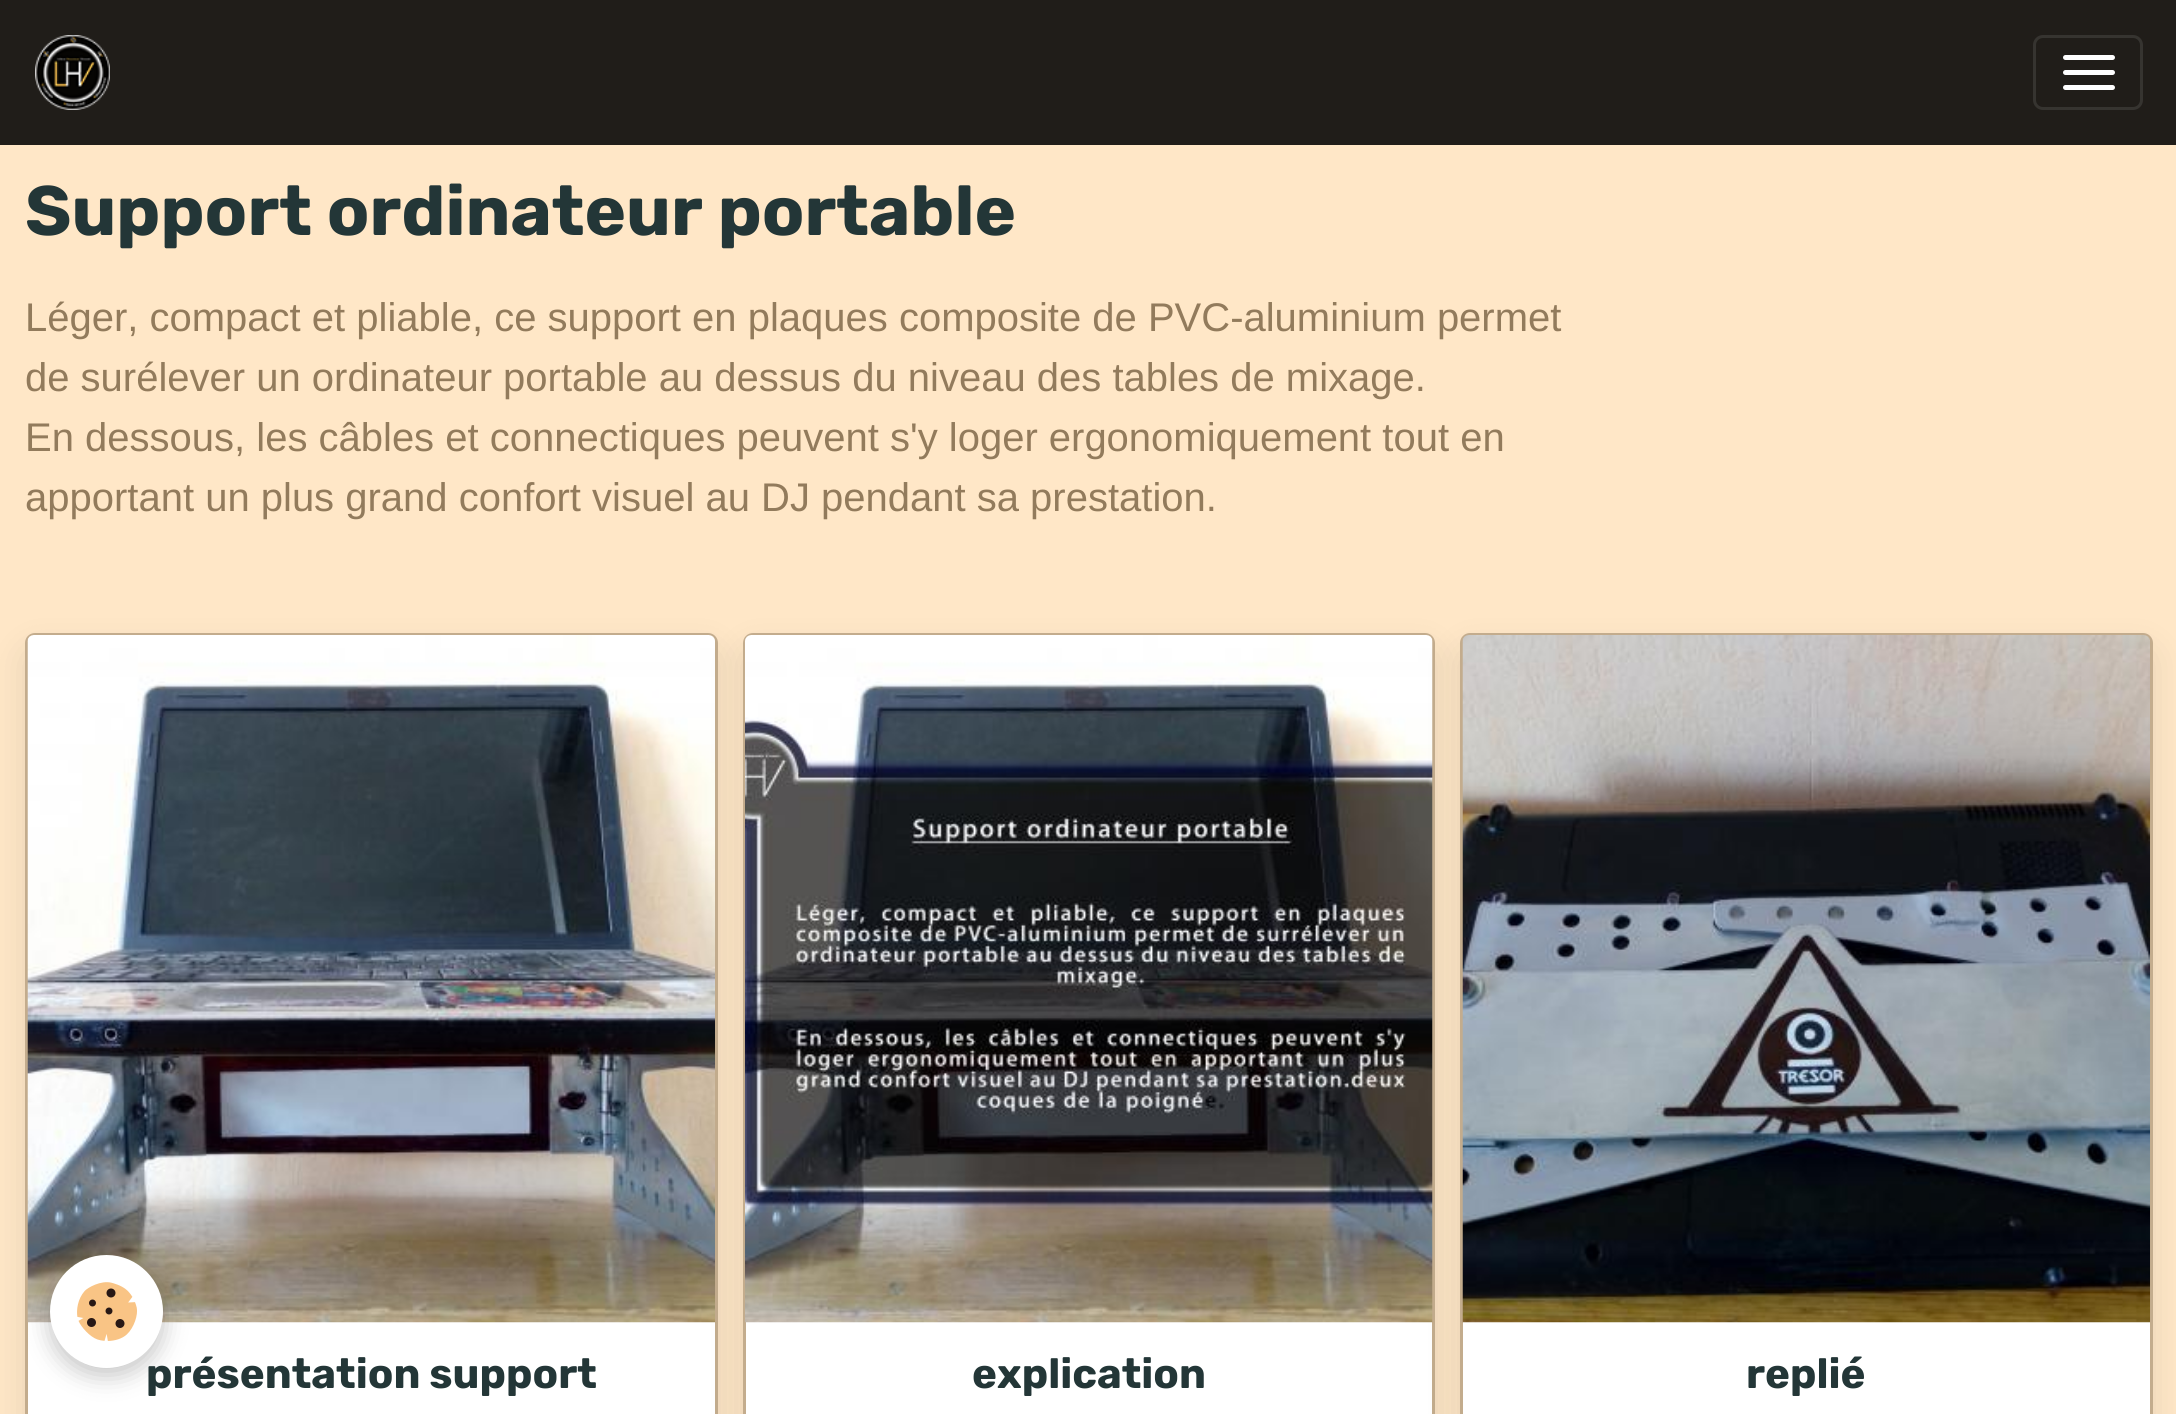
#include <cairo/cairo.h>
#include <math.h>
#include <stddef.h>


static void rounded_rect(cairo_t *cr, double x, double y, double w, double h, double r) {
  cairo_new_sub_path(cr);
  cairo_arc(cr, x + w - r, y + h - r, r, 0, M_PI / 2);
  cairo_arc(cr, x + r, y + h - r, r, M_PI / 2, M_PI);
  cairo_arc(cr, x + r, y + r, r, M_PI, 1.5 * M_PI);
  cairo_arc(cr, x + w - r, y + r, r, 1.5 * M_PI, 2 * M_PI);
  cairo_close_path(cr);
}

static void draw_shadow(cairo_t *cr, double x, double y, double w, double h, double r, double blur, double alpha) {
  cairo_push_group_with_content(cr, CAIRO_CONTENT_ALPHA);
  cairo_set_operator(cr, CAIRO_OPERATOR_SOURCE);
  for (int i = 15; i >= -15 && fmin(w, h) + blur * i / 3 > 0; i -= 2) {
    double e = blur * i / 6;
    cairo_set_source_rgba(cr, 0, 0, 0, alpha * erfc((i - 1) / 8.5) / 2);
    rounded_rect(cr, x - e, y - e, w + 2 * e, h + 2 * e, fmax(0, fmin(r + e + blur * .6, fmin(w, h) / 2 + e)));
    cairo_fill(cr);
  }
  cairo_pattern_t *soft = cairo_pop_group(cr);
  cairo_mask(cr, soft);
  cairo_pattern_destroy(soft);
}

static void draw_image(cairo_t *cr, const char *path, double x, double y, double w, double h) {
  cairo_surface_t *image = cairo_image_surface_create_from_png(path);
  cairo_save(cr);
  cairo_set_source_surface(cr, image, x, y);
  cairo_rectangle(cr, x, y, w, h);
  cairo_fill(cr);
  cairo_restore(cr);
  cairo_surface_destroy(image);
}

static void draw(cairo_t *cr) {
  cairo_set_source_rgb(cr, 1, 231 / 255.0, 199 / 255.0);
  cairo_paint(cr);
  cairo_set_source_rgb(cr, 32 / 255.0, 29 / 255.0, 25 / 255.0);
  cairo_rectangle(cr, 0, 0, 2176, 145);
  cairo_fill(cr);
  draw_image(cr, "images/1.png", 35, 35, 75, 75);
  rounded_rect(cr, 2034.5, 36.5, 107, 72, 8.5);
  cairo_set_source_rgb(cr, 54 / 255.0, 52 / 255.0, 48 / 255.0);
  cairo_set_line_width(cr, 3);
  cairo_stroke(cr);
  cairo_set_source_rgb(cr, 1, 1, 1);
  rounded_rect(cr, 2063, 55, 52, 5, 2.5);
  cairo_fill(cr);
  rounded_rect(cr, 2063, 70, 52, 5, 2.5);
  cairo_fill(cr);
  rounded_rect(cr, 2063, 85, 52, 5, 2.5);
  cairo_fill(cr);
  cairo_set_source_rgb(cr, 0, 0, 0);
  draw_shadow(cr, 25, 650, 693, 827, 10, 17.5, 0.1);
  cairo_set_source_rgb(cr, 1, 1, 1);
  rounded_rect(cr, 26.5, 634.5, 690, 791, 8.5);
  cairo_fill_preserve(cr);
  cairo_set_source_rgb(cr, 195 / 255.0, 172 / 255.0, 141 / 255.0);
  cairo_stroke(cr);
  draw_image(cr, "images/2.png", 27, 635, 688, 688);
  cairo_set_source_rgb(cr, 0, 0, 0);
  draw_shadow(cr, 743, 650, 692, 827, 10, 17.5, 0.1);
  cairo_set_source_rgb(cr, 1, 1, 1);
  rounded_rect(cr, 744.5, 634.5, 689, 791, 8.5);
  cairo_fill_preserve(cr);
  cairo_set_source_rgb(cr, 195 / 255.0, 172 / 255.0, 141 / 255.0);
  cairo_stroke(cr);
  draw_image(cr, "images/3.png", 745, 635, 688, 688);
  cairo_set_source_rgb(cr, 0, 0, 0);
  draw_shadow(cr, 1460, 650, 693, 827, 10, 17.5, 0.1);
  cairo_set_source_rgb(cr, 1, 1, 1);
  rounded_rect(cr, 1461.5, 634.5, 690, 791, 8.5);
  cairo_fill_preserve(cr);
  cairo_set_source_rgb(cr, 195 / 255.0, 172 / 255.0, 141 / 255.0);
  cairo_stroke(cr);
  draw_image(cr, "images/4.png", 1462, 635, 688, 688);
  cairo_set_source_rgb(cr, 0, 0, 0);
  draw_shadow(cr, 50, 1263, 113, 112, 56, 12.5, 0.24);
  cairo_select_font_face(cr, "Rubik", CAIRO_FONT_SLANT_NORMAL, CAIRO_FONT_WEIGHT_BOLD);
  cairo_set_font_size(cr, 70);
  cairo_set_source_rgb(cr, 35 / 255.0, 54 / 255.0, 55 / 255.0);
  cairo_move_to(cr, 25, 235);
  cairo_show_text(cr, "Support ordinateur portable");
  cairo_select_font_face(cr, "Liberation Sans", CAIRO_FONT_SLANT_NORMAL, CAIRO_FONT_WEIGHT_NORMAL);
  cairo_set_font_size(cr, 40);
  cairo_set_source_rgb(cr, 146 / 255.0, 123 / 255.0, 92 / 255.0);
  cairo_move_to(cr, 25, 331);
  cairo_show_text(cr, "Léger, compact et pliable, ce support en plaques composite de PVC-aluminium permet");
  cairo_move_to(cr, 25, 391);
  cairo_show_text(cr, "de surélever un ordinateur portable au dessus du niveau des tables de mixage.");
  cairo_move_to(cr, 25, 451);
  cairo_show_text(cr, "En dessous, les câbles et connectiques peuvent s'y loger ergonomiquement tout en");
  cairo_move_to(cr, 25, 511);
  cairo_show_text(cr, "apportant un plus grand confort visuel au DJ pendant sa prestation.");
  cairo_select_font_face(cr, "Rubik", CAIRO_FONT_SLANT_NORMAL, CAIRO_FONT_WEIGHT_BOLD);
  cairo_set_font_size(cr, 42);
  cairo_set_source_rgb(cr, 35 / 255.0, 54 / 255.0, 55 / 255.0);
  cairo_move_to(cr, 146, 1388);
  cairo_show_text(cr, "présentation support");
  cairo_move_to(cr, 972, 1388);
  cairo_show_text(cr, "explication");
  cairo_move_to(cr, 1746, 1388);
  cairo_show_text(cr, "replié");
  cairo_set_source_rgb(cr, 1, 1, 1);
  cairo_new_path(cr);
  cairo_arc(cr, 106.5, 1311.5, 56.5, 0, 2 * M_PI);
  cairo_fill(cr);
  draw_image(cr, "images/5.png", 77, 1282, 60, 59);
}

int main(void) {
  cairo_surface_t *surface = cairo_image_surface_create(CAIRO_FORMAT_RGB24, 2176, 1414);
  cairo_t *cr = cairo_create(surface);
  cairo_font_options_t *options = cairo_font_options_create();
  cairo_font_options_set_hint_metrics(options, CAIRO_HINT_METRICS_OFF);
  cairo_font_options_set_hint_style(options, CAIRO_HINT_STYLE_NONE);
  cairo_set_font_options(cr, options);
  cairo_set_miter_limit(cr, 4);
  draw(cr);
  cairo_surface_write_to_png(surface, "out.png");
  cairo_font_options_destroy(options);
  cairo_destroy(cr);
  cairo_surface_destroy(surface);
  return 0;
}
